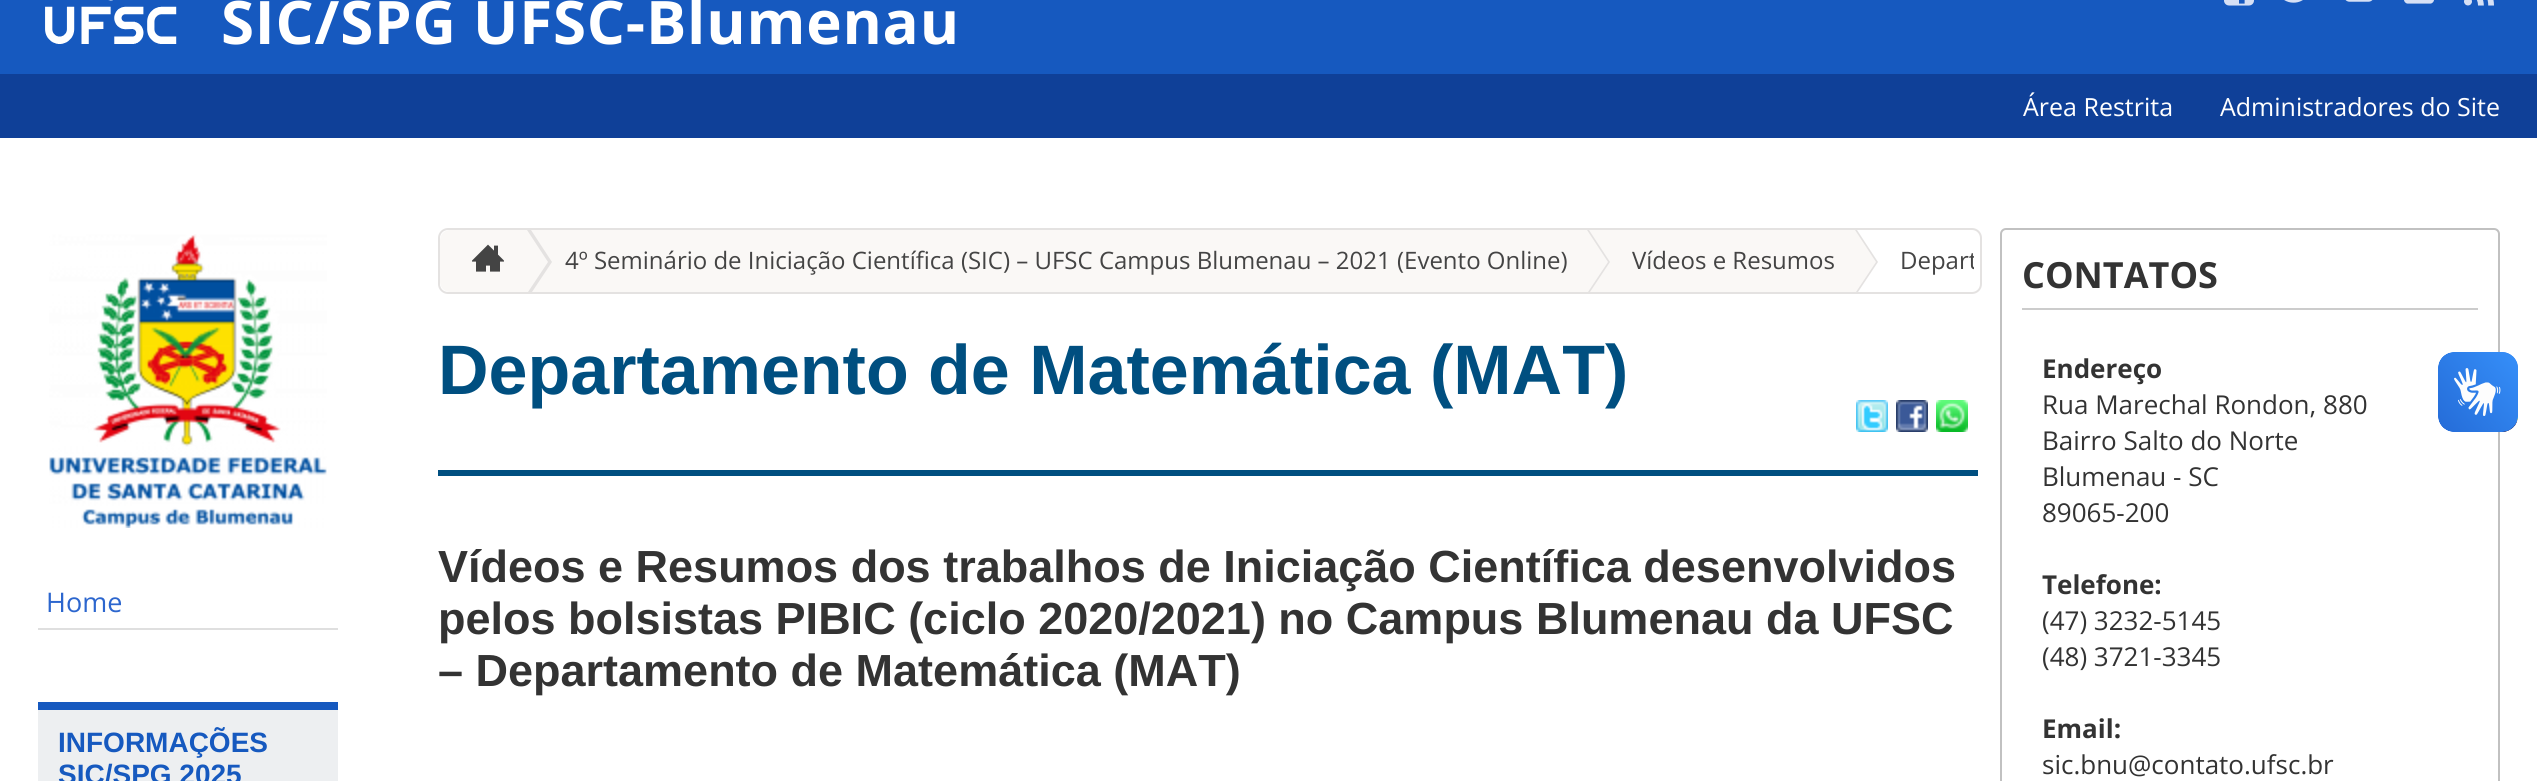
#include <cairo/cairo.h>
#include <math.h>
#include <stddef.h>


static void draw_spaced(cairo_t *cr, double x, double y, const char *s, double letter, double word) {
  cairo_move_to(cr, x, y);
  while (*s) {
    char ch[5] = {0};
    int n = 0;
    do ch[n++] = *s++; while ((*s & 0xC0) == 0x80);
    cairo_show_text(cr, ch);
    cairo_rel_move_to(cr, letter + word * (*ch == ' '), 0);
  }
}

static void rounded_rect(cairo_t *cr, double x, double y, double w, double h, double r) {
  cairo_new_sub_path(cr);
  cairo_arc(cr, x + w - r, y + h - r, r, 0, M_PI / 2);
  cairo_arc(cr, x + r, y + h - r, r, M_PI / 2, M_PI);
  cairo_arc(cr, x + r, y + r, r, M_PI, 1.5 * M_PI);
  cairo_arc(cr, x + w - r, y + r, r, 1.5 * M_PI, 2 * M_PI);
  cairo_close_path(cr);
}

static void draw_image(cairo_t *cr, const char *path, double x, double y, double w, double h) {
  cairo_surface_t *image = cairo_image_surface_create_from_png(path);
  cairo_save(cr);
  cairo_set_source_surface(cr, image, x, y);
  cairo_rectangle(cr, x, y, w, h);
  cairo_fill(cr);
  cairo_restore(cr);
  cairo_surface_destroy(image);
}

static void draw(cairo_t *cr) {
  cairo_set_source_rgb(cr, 1, 1, 1);
  cairo_paint(cr);
  cairo_set_source_rgb(cr, 22 / 255.0, 89 / 255.0, 191 / 255.0);
  cairo_rectangle(cr, 0, 0, 2537, 74);
  cairo_fill(cr);
  draw_image(cr, "images/1.png", 45, 0, 132, 44);
  draw_image(cr, "images/2.png", 2224, 0, 30, 6);
  draw_image(cr, "images/3.png", 2284, 0, 19, 3);
  draw_image(cr, "images/4.png", 2345, 0, 28, 2);
  draw_image(cr, "images/5.png", 2404, 0, 30, 4);
  draw_image(cr, "images/6.png", 2464, 0, 30, 6);
  cairo_set_source_rgb(cr, 15 / 255.0, 64 / 255.0, 152 / 255.0);
  cairo_rectangle(cr, 0, 74, 2537, 64);
  cairo_fill(cr);
  draw_image(cr, "images/7.png", 49, 234, 278, 294);
  cairo_set_source_rgb(cr, 223 / 255.0, 223 / 255.0, 223 / 255.0);
  cairo_rectangle(cr, 38, 628, 300, 2);
  cairo_fill(cr);
  cairo_set_source_rgb(cr, 237 / 255.0, 239 / 255.0, 241 / 255.0);
  cairo_rectangle(cr, 38, 710, 300, 71);
  cairo_fill(cr);
  cairo_set_source_rgb(cr, 22 / 255.0, 89 / 255.0, 191 / 255.0);
  cairo_rectangle(cr, 38, 702, 300, 8);
  cairo_fill(cr);
  rounded_rect(cr, 439, 229, 1542, 64, 9);
  cairo_set_source_rgb(cr, 228 / 255.0, 226 / 255.0, 225 / 255.0);
  cairo_stroke(cr);
  cairo_set_source_rgb(cr, 250 / 255.0, 248 / 255.0, 246 / 255.0);
  cairo_new_path(cr);
  cairo_move_to(cr, 450, 230);
  cairo_line_to(cr, 516, 230);
  cairo_line_to(cr, 516, 292);
  cairo_line_to(cr, 450, 292);
  cairo_curve_to(cr, 444.5, 292, 440, 287.5, 440, 282);
  cairo_line_to(cr, 440, 240);
  cairo_curve_to(cr, 440, 234.5, 444.5, 230, 450, 230);
  cairo_close_path(cr);
  cairo_fill(cr);
  cairo_rectangle(cr, 531, 230, 1053, 62);
  cairo_fill(cr);
  cairo_set_source_rgb(cr, 228 / 255.0, 226 / 255.0, 225 / 255.0);
  cairo_new_path(cr);
  cairo_move_to(cr, 531, 230);
  cairo_line_to(cr, 552, 262);
  cairo_line_to(cr, 532, 292);
  cairo_line_to(cr, 520, 292);
  cairo_line_to(cr, 520, 230);
  cairo_close_path(cr);
  cairo_fill(cr);
  cairo_set_source_rgb(cr, 250 / 255.0, 248 / 255.0, 246 / 255.0);
  cairo_new_path(cr);
  cairo_move_to(cr, 527, 230);
  cairo_line_to(cr, 548, 262);
  cairo_line_to(cr, 528, 292);
  cairo_line_to(cr, 516, 292);
  cairo_line_to(cr, 516, 230);
  cairo_close_path(cr);
  cairo_fill(cr);
  draw_image(cr, "images/8.png", 472, 244, 32, 28);
  cairo_rectangle(cr, 1589, 230, 263, 62);
  cairo_fill(cr);
  cairo_set_source_rgb(cr, 228 / 255.0, 226 / 255.0, 225 / 255.0);
  cairo_new_path(cr);
  cairo_move_to(cr, 1589, 230);
  cairo_line_to(cr, 1610, 262);
  cairo_line_to(cr, 1590, 292);
  cairo_line_to(cr, 1586, 292);
  cairo_line_to(cr, 1586, 230);
  cairo_close_path(cr);
  cairo_fill(cr);
  cairo_set_source_rgb(cr, 250 / 255.0, 248 / 255.0, 246 / 255.0);
  cairo_new_path(cr);
  cairo_move_to(cr, 1587, 230);
  cairo_line_to(cr, 1608, 262);
  cairo_line_to(cr, 1588, 292);
  cairo_line_to(cr, 1584, 292);
  cairo_line_to(cr, 1584, 230);
  cairo_close_path(cr);
  cairo_fill(cr);
  cairo_set_source_rgb(cr, 228 / 255.0, 226 / 255.0, 225 / 255.0);
  cairo_new_path(cr);
  cairo_move_to(cr, 1857, 230);
  cairo_line_to(cr, 1878, 262);
  cairo_line_to(cr, 1858, 292);
  cairo_line_to(cr, 1854, 292);
  cairo_line_to(cr, 1854, 230);
  cairo_close_path(cr);
  cairo_fill(cr);
  cairo_set_source_rgb(cr, 250 / 255.0, 248 / 255.0, 246 / 255.0);
  cairo_new_path(cr);
  cairo_move_to(cr, 1855, 230);
  cairo_line_to(cr, 1876, 262);
  cairo_line_to(cr, 1856, 292);
  cairo_line_to(cr, 1852, 292);
  cairo_line_to(cr, 1852, 230);
  cairo_close_path(cr);
  cairo_fill(cr);
  cairo_set_source_rgb(cr, 0, 79 / 255.0, 128 / 255.0);
  cairo_rectangle(cr, 438, 470, 1540, 6);
  cairo_fill(cr);
  draw_image(cr, "images/9.png", 1856, 400, 32, 32);
  draw_image(cr, "images/10.png", 1896, 400, 32, 32);
  draw_image(cr, "images/11.png", 1936, 400, 32, 32);
  rounded_rect(cr, 2001, 229, 498, 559, 5);
  cairo_set_source_rgb(cr, 193 / 255.0, 193 / 255.0, 193 / 255.0);
  cairo_stroke(cr);
  cairo_set_source_rgb(cr, 204 / 255.0, 204 / 255.0, 204 / 255.0);
  cairo_rectangle(cr, 2022, 308, 456, 2);
  cairo_fill(cr);
  draw_image(cr, "images/12.png", 2438, 352, 80, 80);
  draw_image(cr, "images/13.png", 2438, 352, 80, 80);
  cairo_select_font_face(cr, "Open Sans", CAIRO_FONT_SLANT_NORMAL, CAIRO_FONT_WEIGHT_BOLD);
  cairo_set_font_size(cr, 60);
  cairo_set_source_rgb(cr, 1, 1, 1);
  draw_spaced(cr, 221, 44, "SIC/SPG UFSC-Blumenau", 0.8, 0);
  cairo_select_font_face(cr, "Open Sans", CAIRO_FONT_SLANT_NORMAL, CAIRO_FONT_WEIGHT_NORMAL);
  cairo_set_font_size(cr, 25);
  cairo_move_to(cr, 2023, 116);
  cairo_show_text(cr, "Área Restrita");
  cairo_move_to(cr, 2220, 116);
  cairo_show_text(cr, "Administradores do Site");
  cairo_set_font_size(cr, 27);
  cairo_set_source_rgb(cr, 44 / 255.0, 102 / 255.0, 206 / 255.0);
  cairo_move_to(cr, 46, 612);
  cairo_show_text(cr, "Home");
  cairo_select_font_face(cr, "Liberation Sans", CAIRO_FONT_SLANT_NORMAL, CAIRO_FONT_WEIGHT_BOLD);
  cairo_set_font_size(cr, 28);
  cairo_set_source_rgb(cr, 22 / 255.0, 89 / 255.0, 191 / 255.0);
  cairo_move_to(cr, 58, 752);
  cairo_show_text(cr, "INFORMAÇÕES");
  cairo_move_to(cr, 58, 784);
  cairo_show_text(cr, "SIC/SPG 2025");
  cairo_select_font_face(cr, "Open Sans", CAIRO_FONT_SLANT_NORMAL, CAIRO_FONT_WEIGHT_NORMAL);
  cairo_set_font_size(cr, 24);
  cairo_set_source_rgb(cr, 68 / 255.0, 68 / 255.0, 68 / 255.0);
  cairo_move_to(cr, 565, 269);
  cairo_show_text(cr, "4º Seminário de Iniciação Científica (SIC) – UFSC Campus Blumenau – 2021 (Evento Online)");
  cairo_move_to(cr, 1632, 269);
  cairo_show_text(cr, "Vídeos e Resumos");
  cairo_save(cr);
  cairo_rectangle(cr, 1852, 230, 122, 62);
  cairo_clip(cr);
  cairo_move_to(cr, 1900, 269);
  cairo_show_text(cr, "Depart");
  cairo_restore(cr);
  cairo_select_font_face(cr, "Liberation Sans", CAIRO_FONT_SLANT_NORMAL, CAIRO_FONT_WEIGHT_BOLD);
  cairo_set_font_size(cr, 70);
  cairo_set_source_rgb(cr, 0, 79 / 255.0, 128 / 255.0);
  cairo_move_to(cr, 438, 394);
  cairo_show_text(cr, "Departamento de Matemática (MAT)");
  cairo_set_font_size(cr, 45);
  cairo_set_source_rgb(cr, 51 / 255.0, 51 / 255.0, 51 / 255.0);
  cairo_move_to(cr, 438, 582);
  cairo_show_text(cr, "Vídeos e Resumos dos trabalhos de Iniciação Científica desenvolvidos");
  cairo_move_to(cr, 438, 634);
  cairo_show_text(cr, "pelos bolsistas PIBIC (ciclo 2020/2021) no Campus Blumenau da UFSC");
  cairo_move_to(cr, 438, 686);
  cairo_show_text(cr, "– Departamento de Matemática (MAT)");
  cairo_select_font_face(cr, "Open Sans", CAIRO_FONT_SLANT_NORMAL, CAIRO_FONT_WEIGHT_BOLD);
  cairo_set_font_size(cr, 36);
  cairo_move_to(cr, 2022, 288);
  cairo_show_text(cr, "CONTATOS");
  cairo_set_font_size(cr, 26);
  cairo_move_to(cr, 2042, 378);
  cairo_show_text(cr, "Endereço");
  cairo_select_font_face(cr, "Open Sans", CAIRO_FONT_SLANT_NORMAL, CAIRO_FONT_WEIGHT_NORMAL);
  cairo_move_to(cr, 2042, 414);
  cairo_show_text(cr, "Rua Marechal Rondon, 880");
  cairo_move_to(cr, 2042, 450);
  cairo_show_text(cr, "Bairro Salto do Norte");
  cairo_move_to(cr, 2042, 486);
  cairo_show_text(cr, "Blumenau - SC");
  cairo_move_to(cr, 2042, 522);
  cairo_show_text(cr, "89065-200");
  cairo_select_font_face(cr, "Open Sans", CAIRO_FONT_SLANT_NORMAL, CAIRO_FONT_WEIGHT_BOLD);
  cairo_move_to(cr, 2042, 594);
  cairo_show_text(cr, "Telefone:");
  cairo_select_font_face(cr, "Open Sans", CAIRO_FONT_SLANT_NORMAL, CAIRO_FONT_WEIGHT_NORMAL);
  cairo_move_to(cr, 2042, 630);
  cairo_show_text(cr, "(47) 3232-5145");
  cairo_move_to(cr, 2042, 666);
  cairo_show_text(cr, "(48) 3721-3345");
  cairo_select_font_face(cr, "Open Sans", CAIRO_FONT_SLANT_NORMAL, CAIRO_FONT_WEIGHT_BOLD);
  cairo_move_to(cr, 2042, 738);
  cairo_show_text(cr, "Email:");
  cairo_select_font_face(cr, "Open Sans", CAIRO_FONT_SLANT_NORMAL, CAIRO_FONT_WEIGHT_NORMAL);
  cairo_move_to(cr, 2042, 774);
  cairo_show_text(cr, "sic.bnu@contato.ufsc.br");
}

int main(void) {
  cairo_surface_t *surface = cairo_image_surface_create(CAIRO_FORMAT_RGB24, 2537, 781);
  cairo_t *cr = cairo_create(surface);
  cairo_font_options_t *options = cairo_font_options_create();
  cairo_font_options_set_hint_metrics(options, CAIRO_HINT_METRICS_OFF);
  cairo_font_options_set_hint_style(options, CAIRO_HINT_STYLE_NONE);
  cairo_set_font_options(cr, options);
  cairo_set_miter_limit(cr, 4);
  draw(cr);
  cairo_surface_write_to_png(surface, "out.png");
  cairo_font_options_destroy(options);
  cairo_destroy(cr);
  cairo_surface_destroy(surface);
  return 0;
}
